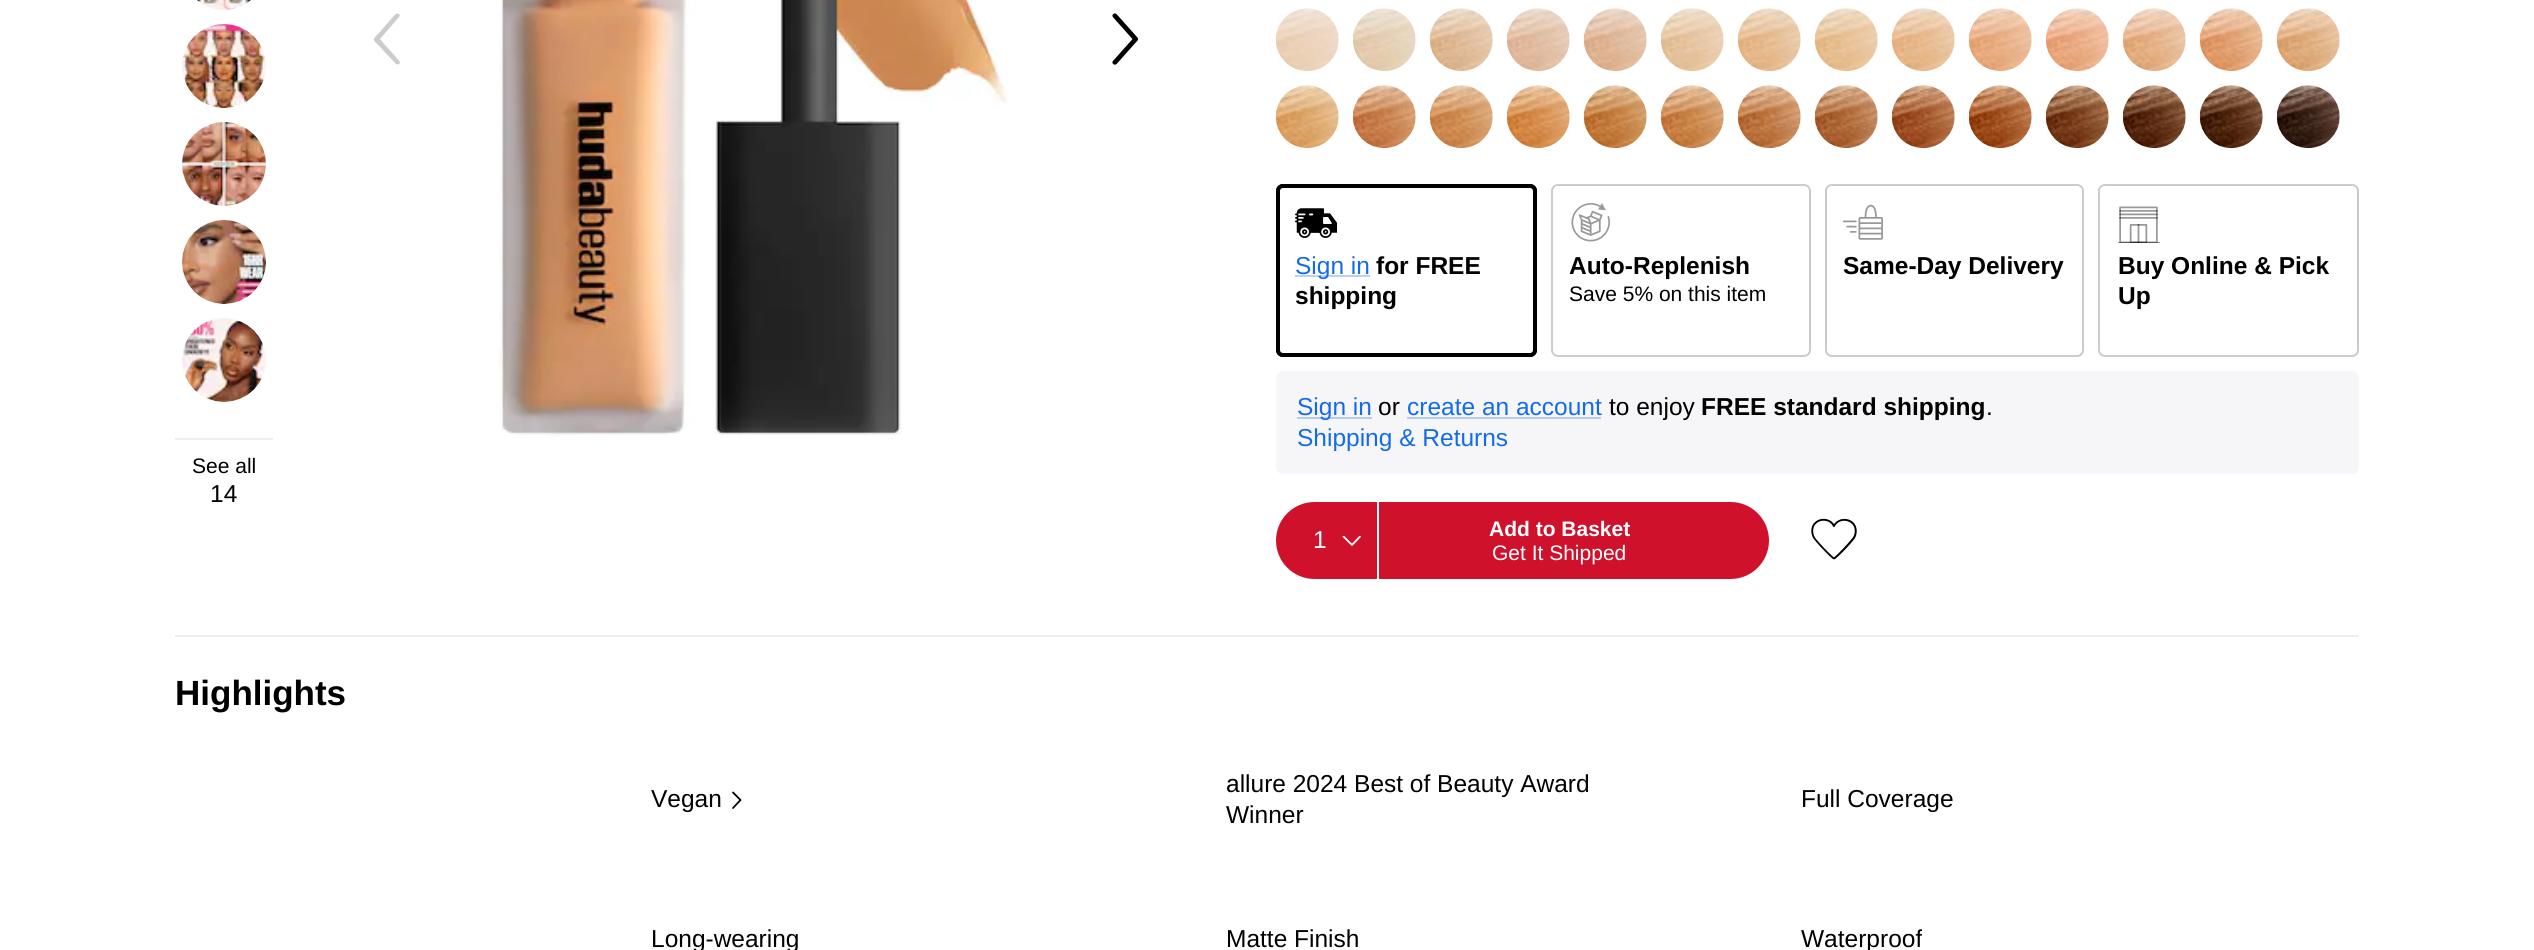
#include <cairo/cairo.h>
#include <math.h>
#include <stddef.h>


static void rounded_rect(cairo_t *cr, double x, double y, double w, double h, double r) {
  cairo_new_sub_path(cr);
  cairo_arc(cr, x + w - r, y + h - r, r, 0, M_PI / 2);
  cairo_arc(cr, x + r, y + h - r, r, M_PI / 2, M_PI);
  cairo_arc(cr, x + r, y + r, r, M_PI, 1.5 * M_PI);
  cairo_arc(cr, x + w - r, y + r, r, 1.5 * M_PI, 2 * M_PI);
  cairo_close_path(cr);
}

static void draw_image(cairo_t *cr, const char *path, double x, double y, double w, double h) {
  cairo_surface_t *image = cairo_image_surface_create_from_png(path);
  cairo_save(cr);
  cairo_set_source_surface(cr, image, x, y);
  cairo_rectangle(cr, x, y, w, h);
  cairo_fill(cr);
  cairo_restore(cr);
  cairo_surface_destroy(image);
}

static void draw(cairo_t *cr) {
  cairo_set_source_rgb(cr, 1, 1, 1);
  cairo_paint(cr);
  cairo_set_source_rgb(cr, 204 / 255.0, 204 / 255.0, 204 / 255.0);
  cairo_new_path(cr);
  cairo_move_to(cr, 399, 14);
  cairo_curve_to(cr, 400, 15, 400, 16, 399, 17);
  cairo_line_to(cr, 380, 39);
  cairo_curve_to(cr, 382, 42, 399, 60, 400, 62);
  cairo_curve_to(cr, 400, 64, 398, 65, 396, 64);
  cairo_line_to(cr, 381, 48);
  cairo_curve_to(cr, 373, 39, 371, 41, 378, 34);
  cairo_line_to(cr, 392, 18);
  cairo_curve_to(cr, 393, 17, 396, 12, 399, 14);
  cairo_close_path(cr);
  cairo_fill(cr);
  draw_image(cr, "images/1.png", 498, 0, 510, 437);
  draw_image(cr, "images/2.png", 1112, 13, 27, 52);
  draw_image(cr, "images/3.png", 197, 0, 54, 10);
  draw_image(cr, "images/4.png", 182, 24, 84, 84);
  draw_image(cr, "images/5.png", 182, 122, 84, 84);
  draw_image(cr, "images/6.png", 182, 220, 84, 84);
  draw_image(cr, "images/7.png", 182, 318, 84, 84);
  cairo_set_source_rgb(cr, 239 / 255.0, 239 / 255.0, 239 / 255.0);
  cairo_rectangle(cr, 175, 438, 98, 2);
  cairo_fill(cr);
  draw_image(cr, "images/8.png", 1275, 8, 64, 64);
  draw_image(cr, "images/9.png", 1352, 8, 64, 64);
  draw_image(cr, "images/10.png", 1429, 8, 64, 64);
  draw_image(cr, "images/11.png", 1506, 8, 64, 64);
  draw_image(cr, "images/12.png", 1583, 8, 64, 64);
  draw_image(cr, "images/13.png", 1660, 8, 64, 64);
  draw_image(cr, "images/14.png", 1737, 8, 64, 64);
  draw_image(cr, "images/15.png", 1814, 8, 64, 64);
  draw_image(cr, "images/16.png", 1891, 8, 64, 64);
  draw_image(cr, "images/17.png", 1968, 8, 64, 64);
  draw_image(cr, "images/18.png", 2045, 8, 64, 64);
  draw_image(cr, "images/19.png", 2122, 8, 64, 64);
  draw_image(cr, "images/20.png", 2199, 8, 64, 64);
  draw_image(cr, "images/21.png", 2276, 8, 64, 64);
  draw_image(cr, "images/22.png", 1275, 85, 64, 64);
  draw_image(cr, "images/23.png", 1352, 85, 64, 64);
  draw_image(cr, "images/24.png", 1429, 85, 64, 64);
  draw_image(cr, "images/25.png", 1506, 85, 64, 64);
  draw_image(cr, "images/26.png", 1583, 85, 64, 64);
  draw_image(cr, "images/27.png", 1660, 85, 64, 64);
  draw_image(cr, "images/28.png", 1737, 85, 64, 64);
  draw_image(cr, "images/29.png", 1814, 85, 64, 64);
  draw_image(cr, "images/30.png", 1891, 85, 64, 64);
  draw_image(cr, "images/31.png", 1968, 85, 64, 64);
  draw_image(cr, "images/32.png", 2045, 85, 64, 64);
  draw_image(cr, "images/33.png", 2122, 85, 64, 64);
  draw_image(cr, "images/34.png", 2199, 85, 64, 64);
  draw_image(cr, "images/35.png", 2276, 85, 64, 64);
  rounded_rect(cr, 1277, 185, 259, 171, 6);
  cairo_set_source_rgb(cr, 0, 0, 0);
  cairo_stroke(cr);
  draw_image(cr, "images/36.png", 1295, 208, 42, 30);
  cairo_set_source_rgb(cr, 184 / 255.0, 211 / 255.0, 249 / 255.0);
  cairo_rectangle(cr, 1295, 275, 75, 2);
  cairo_fill(cr);
  rounded_rect(cr, 1278, 186, 257, 169, 5);
  cairo_set_source_rgb(cr, 0, 0, 0);
  cairo_set_line_width(cr, 4);
  cairo_stroke(cr);
  cairo_set_source_rgb(cr, 246 / 255.0, 246 / 255.0, 248 / 255.0);
  rounded_rect(cr, 1276, 371, 1083, 103, 7);
  cairo_fill(cr);
  cairo_set_source_rgb(cr, 178 / 255.0, 204 / 255.0, 244 / 255.0);
  cairo_rectangle(cr, 1297, 417, 75, 2);
  cairo_fill(cr);
  cairo_rectangle(cr, 1407, 417, 194, 2);
  cairo_fill(cr);
  rounded_rect(cr, 1552, 185, 258, 171, 6);
  cairo_set_source_rgb(cr, 204 / 255.0, 204 / 255.0, 204 / 255.0);
  cairo_set_line_width(cr, 2);
  cairo_stroke(cr);
  draw_image(cr, "images/37.png", 1571, 203, 39, 39);
  rounded_rect(cr, 1826, 185, 257, 171, 6);
  cairo_stroke(cr);
  draw_image(cr, "images/38.png", 1843, 204, 40, 36);
  rounded_rect(cr, 2099, 185, 259, 171, 6);
  cairo_stroke(cr);
  draw_image(cr, "images/39.png", 2118, 206, 42, 37);
  cairo_set_source_rgb(cr, 207 / 255.0, 17 / 255.0, 44 / 255.0);
  rounded_rect(cr, 1276, 502, 493, 77, 38.5);
  cairo_fill(cr);
  cairo_set_source_rgb(cr, 1, 1, 1);
  cairo_rectangle(cr, 1377, 502, 2, 77);
  cairo_fill(cr);
  cairo_save(cr);
  cairo_rectangle(cr, 1342, 536, 20, 10);
  cairo_clip(cr);
  cairo_new_path(cr);
  cairo_move_to(cr, 1343.5, 536.5);
  cairo_line_to(cr, 1352, 545);
  cairo_line_to(cr, 1360, 536.5);
  cairo_set_line_width(cr, 1.8);
  cairo_set_line_cap(cr, CAIRO_LINE_CAP_ROUND);
  cairo_set_line_join(cr, CAIRO_LINE_JOIN_ROUND);
  cairo_stroke(cr);
  cairo_restore(cr);
  draw_image(cr, "images/40.png", 1811, 518, 46, 42);
  cairo_set_source_rgb(cr, 239 / 255.0, 239 / 255.0, 239 / 255.0);
  cairo_rectangle(cr, 175, 635, 2184, 2);
  cairo_fill(cr);
  cairo_new_path(cr);
  cairo_move_to(cr, 733, 808);
  cairo_line_to(cr, 740.5, 800);
  cairo_line_to(cr, 733, 792.5);
  cairo_set_source_rgb(cr, 0, 0, 0);
  cairo_set_line_width(cr, 1.8);
  cairo_set_line_cap(cr, CAIRO_LINE_CAP_ROUND);
  cairo_set_line_join(cr, CAIRO_LINE_JOIN_ROUND);
  cairo_stroke(cr);
  cairo_select_font_face(cr, "Liberation Sans", CAIRO_FONT_SLANT_NORMAL, CAIRO_FONT_WEIGHT_NORMAL);
  cairo_set_font_size(cr, 21);
  cairo_move_to(cr, 192, 473);
  cairo_show_text(cr, "See all");
  cairo_set_font_size(cr, 24.5);
  cairo_move_to(cr, 210, 502);
  cairo_show_text(cr, "14");
  cairo_set_source_rgb(cr, 19 / 255.0, 107 / 255.0, 234 / 255.0);
  cairo_move_to(cr, 1295, 274);
  cairo_show_text(cr, "Sign in");
  cairo_select_font_face(cr, "Liberation Sans", CAIRO_FONT_SLANT_NORMAL, CAIRO_FONT_WEIGHT_BOLD);
  cairo_set_source_rgb(cr, 0, 0, 0);
  cairo_move_to(cr, 1376, 274);
  cairo_show_text(cr, "for FREE");
  cairo_move_to(cr, 1295, 304);
  cairo_show_text(cr, "shipping");
  cairo_select_font_face(cr, "Liberation Sans", CAIRO_FONT_SLANT_NORMAL, CAIRO_FONT_WEIGHT_NORMAL);
  cairo_set_source_rgb(cr, 19 / 255.0, 107 / 255.0, 234 / 255.0);
  cairo_move_to(cr, 1297, 415);
  cairo_show_text(cr, "Sign in");
  cairo_set_source_rgb(cr, 0, 0, 0);
  cairo_move_to(cr, 1378, 415);
  cairo_show_text(cr, "or");
  cairo_set_source_rgb(cr, 19 / 255.0, 107 / 255.0, 234 / 255.0);
  cairo_move_to(cr, 1407, 415);
  cairo_show_text(cr, "create an account");
  cairo_set_source_rgb(cr, 0, 0, 0);
  cairo_move_to(cr, 1609, 415);
  cairo_show_text(cr, "to enjoy");
  cairo_select_font_face(cr, "Liberation Sans", CAIRO_FONT_SLANT_NORMAL, CAIRO_FONT_WEIGHT_BOLD);
  cairo_move_to(cr, 1701, 415);
  cairo_show_text(cr, "FREE standard shipping");
  cairo_select_font_face(cr, "Liberation Sans", CAIRO_FONT_SLANT_NORMAL, CAIRO_FONT_WEIGHT_NORMAL);
  cairo_move_to(cr, 1986, 415);
  cairo_show_text(cr, ".");
  cairo_set_source_rgb(cr, 19 / 255.0, 107 / 255.0, 234 / 255.0);
  cairo_move_to(cr, 1297, 446);
  cairo_show_text(cr, "Shipping & Returns");
  cairo_select_font_face(cr, "Liberation Sans", CAIRO_FONT_SLANT_NORMAL, CAIRO_FONT_WEIGHT_BOLD);
  cairo_set_source_rgb(cr, 0, 0, 0);
  cairo_move_to(cr, 1569, 274);
  cairo_show_text(cr, "Auto-Replenish");
  cairo_select_font_face(cr, "Liberation Sans", CAIRO_FONT_SLANT_NORMAL, CAIRO_FONT_WEIGHT_NORMAL);
  cairo_set_font_size(cr, 21);
  cairo_move_to(cr, 1569, 301);
  cairo_show_text(cr, "Save 5% on this item");
  cairo_select_font_face(cr, "Liberation Sans", CAIRO_FONT_SLANT_NORMAL, CAIRO_FONT_WEIGHT_BOLD);
  cairo_set_font_size(cr, 24.5);
  cairo_move_to(cr, 1843, 274);
  cairo_show_text(cr, "Same-Day Delivery");
  cairo_move_to(cr, 2118, 274);
  cairo_show_text(cr, "Buy Online & Pick");
  cairo_move_to(cr, 2118, 304);
  cairo_show_text(cr, "Up");
  cairo_select_font_face(cr, "Liberation Sans", CAIRO_FONT_SLANT_NORMAL, CAIRO_FONT_WEIGHT_NORMAL);
  cairo_set_source_rgb(cr, 1, 1, 1);
  cairo_move_to(cr, 1313, 548);
  cairo_show_text(cr, "1");
  cairo_select_font_face(cr, "Liberation Sans", CAIRO_FONT_SLANT_NORMAL, CAIRO_FONT_WEIGHT_BOLD);
  cairo_set_font_size(cr, 21);
  cairo_move_to(cr, 1489, 536);
  cairo_show_text(cr, "Add to Basket");
  cairo_select_font_face(cr, "Liberation Sans", CAIRO_FONT_SLANT_NORMAL, CAIRO_FONT_WEIGHT_NORMAL);
  cairo_move_to(cr, 1492, 560);
  cairo_show_text(cr, "Get It Shipped");
  cairo_select_font_face(cr, "Liberation Sans", CAIRO_FONT_SLANT_NORMAL, CAIRO_FONT_WEIGHT_BOLD);
  cairo_set_font_size(cr, 35);
  cairo_set_source_rgb(cr, 0, 0, 0);
  cairo_move_to(cr, 175, 705);
  cairo_show_text(cr, "Highlights");
  cairo_select_font_face(cr, "Liberation Sans", CAIRO_FONT_SLANT_NORMAL, CAIRO_FONT_WEIGHT_NORMAL);
  cairo_set_font_size(cr, 24.5);
  cairo_move_to(cr, 651, 807);
  cairo_show_text(cr, "Vegan");
  cairo_move_to(cr, 1226, 792);
  cairo_show_text(cr, "allure 2024 Best of Beauty Award");
  cairo_move_to(cr, 1226, 823);
  cairo_show_text(cr, "Winner");
  cairo_move_to(cr, 1801, 807);
  cairo_show_text(cr, "Full Coverage");
  cairo_move_to(cr, 651, 947);
  cairo_show_text(cr, "Long-wearing");
  cairo_move_to(cr, 1226, 947);
  cairo_show_text(cr, "Matte Finish");
  cairo_move_to(cr, 1801, 947);
  cairo_show_text(cr, "Waterproof");
}

int main(void) {
  cairo_surface_t *surface = cairo_image_surface_create(CAIRO_FORMAT_RGB24, 2534, 950);
  cairo_t *cr = cairo_create(surface);
  cairo_font_options_t *options = cairo_font_options_create();
  cairo_font_options_set_hint_metrics(options, CAIRO_HINT_METRICS_OFF);
  cairo_font_options_set_hint_style(options, CAIRO_HINT_STYLE_NONE);
  cairo_set_font_options(cr, options);
  cairo_set_miter_limit(cr, 4);
  draw(cr);
  cairo_surface_write_to_png(surface, "out.png");
  cairo_font_options_destroy(options);
  cairo_destroy(cr);
  cairo_surface_destroy(surface);
  return 0;
}
